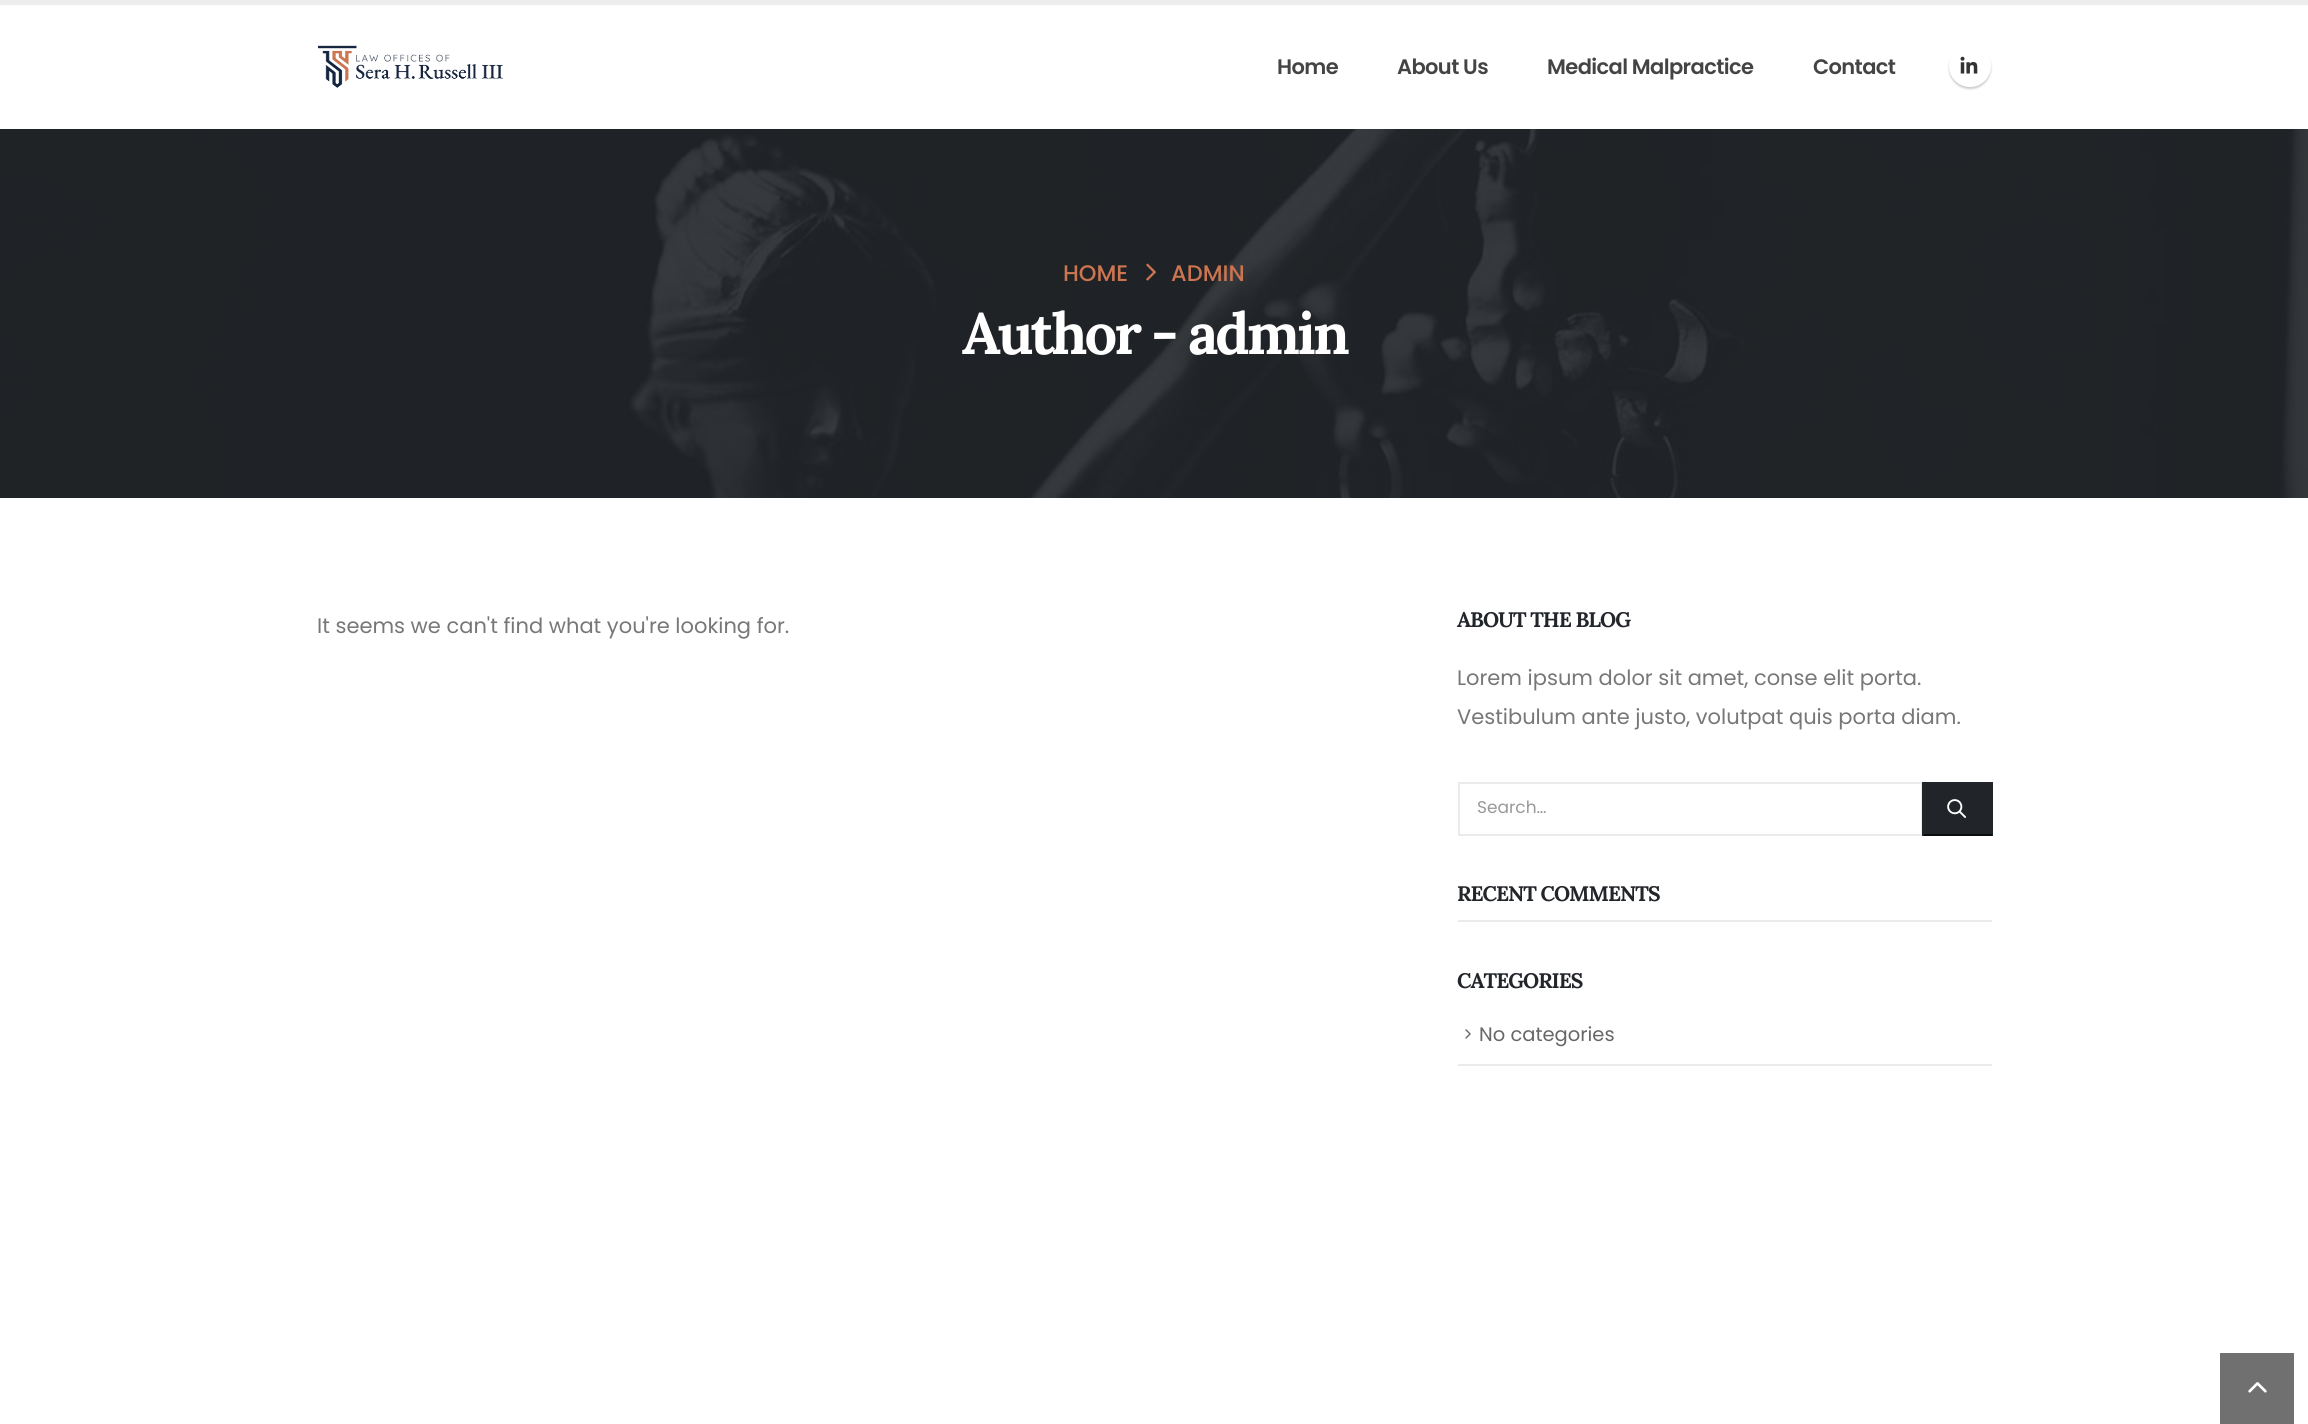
#include <cairo/cairo.h>
#include <math.h>
#include <stddef.h>


static void draw_spaced(cairo_t *cr, double x, double y, const char *s, double letter, double word) {
  cairo_move_to(cr, x, y);
  while (*s) {
    char ch[5] = {0};
    int n = 0;
    do ch[n++] = *s++; while ((*s & 0xC0) == 0x80);
    cairo_show_text(cr, ch);
    cairo_rel_move_to(cr, letter + word * (*ch == ' '), 0);
  }
}

static void rounded_rect(cairo_t *cr, double x, double y, double w, double h, double r) {
  cairo_new_sub_path(cr);
  cairo_arc(cr, x + w - r, y + h - r, r, 0, M_PI / 2);
  cairo_arc(cr, x + r, y + h - r, r, M_PI / 2, M_PI);
  cairo_arc(cr, x + r, y + r, r, M_PI, 1.5 * M_PI);
  cairo_arc(cr, x + w - r, y + r, r, 1.5 * M_PI, 2 * M_PI);
  cairo_close_path(cr);
}

static void draw_shadow(cairo_t *cr, double x, double y, double w, double h, double r, double blur, double alpha) {
  cairo_push_group_with_content(cr, CAIRO_CONTENT_ALPHA);
  cairo_set_operator(cr, CAIRO_OPERATOR_SOURCE);
  for (int i = 15; i >= -15 && fmin(w, h) + blur * i / 3 > 0; i -= 2) {
    double e = blur * i / 6;
    cairo_set_source_rgba(cr, 0, 0, 0, alpha * erfc((i - 1) / 8.5) / 2);
    rounded_rect(cr, x - e, y - e, w + 2 * e, h + 2 * e, fmax(0, fmin(r + e + blur * .6, fmin(w, h) / 2 + e)));
    cairo_fill(cr);
  }
  cairo_pattern_t *soft = cairo_pop_group(cr);
  cairo_mask(cr, soft);
  cairo_pattern_destroy(soft);
}

static void draw_image(cairo_t *cr, const char *path, double x, double y, double w, double h) {
  cairo_surface_t *image = cairo_image_surface_create_from_png(path);
  cairo_save(cr);
  cairo_set_source_surface(cr, image, x, y);
  cairo_rectangle(cr, x, y, w, h);
  cairo_fill(cr);
  cairo_restore(cr);
  cairo_surface_destroy(image);
}

static void draw(cairo_t *cr) {
  cairo_set_source_rgb(cr, 1, 1, 1);
  cairo_paint(cr);
  cairo_set_source_rgb(cr, 237 / 255.0, 237 / 255.0, 237 / 255.0);
  cairo_rectangle(cr, 0, 0, 2308, 5);
  cairo_fill(cr);
  draw_image(cr, "images/1.png", 318, 45, 185, 43);
  cairo_set_source_rgb(cr, 0, 0, 0);
  draw_shadow(cr, 1949, 47, 42, 42, 21, 1, 0.2);
  cairo_set_source_rgb(cr, 1, 1, 1);
  cairo_arc(cr, 1970, 66, 21, 0, 2 * M_PI);
  cairo_fill(cr);
  draw_image(cr, "images/2.png", 1960, 56, 18, 18);
  draw_image(cr, "images/3.png", 0, 129, 2308, 369);
  draw_image(cr, "images/4.png", 1146, 263, 10, 18);
  cairo_rectangle(cr, 1459, 783, 463, 52);
  cairo_set_source_rgb(cr, 235 / 255.0, 235 / 255.0, 235 / 255.0);
  cairo_stroke(cr);
  cairo_set_source_rgb(cr, 33 / 255.0, 37 / 255.0, 41 / 255.0);
  cairo_rectangle(cr, 1924, 782, 67, 52);
  cairo_fill(cr);
  cairo_rectangle(cr, 1991, 782, 2, 54);
  cairo_fill(cr);
  cairo_set_source_rgb(cr, 11 / 255.0, 12 / 255.0, 13 / 255.0);
  cairo_rectangle(cr, 1922, 834, 70, 2);
  cairo_fill(cr);
  cairo_set_source_rgb(cr, 33 / 255.0, 37 / 255.0, 41 / 255.0);
  cairo_rectangle(cr, 1922, 782, 2, 54);
  cairo_fill(cr);
  draw_image(cr, "images/5.png", 1947, 799, 19, 19);
  cairo_set_source_rgb(cr, 235 / 255.0, 235 / 255.0, 235 / 255.0);
  cairo_rectangle(cr, 1458, 920, 534, 2);
  cairo_fill(cr);
  cairo_rectangle(cr, 1458, 1064, 534, 2);
  cairo_fill(cr);
  draw_image(cr, "images/6.png", 1465, 1029, 6, 10);
  cairo_set_source_rgb(cr, 112 / 255.0, 112 / 255.0, 112 / 255.0);
  cairo_rectangle(cr, 2220, 1353, 74, 71);
  cairo_fill(cr);
  draw_image(cr, "images/7.png", 2248, 1382, 19, 11);
  cairo_select_font_face(cr, "Poppins SemiBold", CAIRO_FONT_SLANT_NORMAL, CAIRO_FONT_WEIGHT_NORMAL);
  cairo_set_font_size(cr, 21);
  cairo_set_source_rgb(cr, 68 / 255.0, 68 / 255.0, 68 / 255.0);
  draw_spaced(cr, 1277, 74, "Home", -0.6, 0);
  draw_spaced(cr, 1397, 74, "About Us", -0.6, 0);
  draw_spaced(cr, 1547, 74, "Medical Malpractice", -0.6, 0);
  draw_spaced(cr, 1813, 74, "Contact", -0.6, 0);
  cairo_select_font_face(cr, "Poppins Medium", CAIRO_FONT_SLANT_NORMAL, CAIRO_FONT_WEIGHT_NORMAL);
  cairo_set_font_size(cr, 22.5);
  cairo_set_source_rgb(cr, 204 / 255.0, 117 / 255.0, 81 / 255.0);
  cairo_move_to(cr, 1063, 281);
  cairo_show_text(cr, "HOME");
  cairo_move_to(cr, 1171, 281);
  cairo_show_text(cr, "ADMIN");
  cairo_select_font_face(cr, "Lora", CAIRO_FONT_SLANT_NORMAL, CAIRO_FONT_WEIGHT_BOLD);
  cairo_set_font_size(cr, 57.75);
  cairo_set_source_rgb(cr, 1, 1, 1);
  draw_spaced(cr, 962, 354, "Author - admin", -2.9, 0);
  cairo_select_font_face(cr, "Poppins", CAIRO_FONT_SLANT_NORMAL, CAIRO_FONT_WEIGHT_NORMAL);
  cairo_set_font_size(cr, 21);
  cairo_set_source_rgb(cr, 119 / 255.0, 119 / 255.0, 119 / 255.0);
  cairo_move_to(cr, 317, 633);
  cairo_show_text(cr, "It seems we can't find what you're looking for.");
  cairo_select_font_face(cr, "Lora", CAIRO_FONT_SLANT_NORMAL, CAIRO_FONT_WEIGHT_BOLD);
  cairo_set_source_rgb(cr, 34 / 255.0, 37 / 255.0, 41 / 255.0);
  draw_spaced(cr, 1457, 627, "ABOUT THE BLOG", -1, 0);
  cairo_select_font_face(cr, "Poppins", CAIRO_FONT_SLANT_NORMAL, CAIRO_FONT_WEIGHT_NORMAL);
  cairo_set_source_rgb(cr, 119 / 255.0, 119 / 255.0, 119 / 255.0);
  cairo_move_to(cr, 1457, 685);
  cairo_show_text(cr, "Lorem ipsum dolor sit amet, conse elit porta.");
  cairo_move_to(cr, 1457, 724);
  cairo_show_text(cr, "Vestibulum ante justo, volutpat quis porta diam.");
  cairo_save(cr);
  cairo_rectangle(cr, 1478, 795, 426, 26);
  cairo_clip(cr);
  cairo_set_font_size(cr, 17);
  cairo_set_source_rgb(cr, 153 / 255.0, 153 / 255.0, 153 / 255.0);
  cairo_move_to(cr, 1477, 813);
  cairo_show_text(cr, "Search…");
  cairo_restore(cr);
  cairo_select_font_face(cr, "Lora", CAIRO_FONT_SLANT_NORMAL, CAIRO_FONT_WEIGHT_BOLD);
  cairo_set_source_rgb(cr, 34 / 255.0, 37 / 255.0, 41 / 255.0);
  draw_spaced(cr, 1457, 901, "RECENT COMMENTS", -1, 0);
  draw_spaced(cr, 1457, 988, "CATEGORIES", -1, 0);
  cairo_select_font_face(cr, "Poppins", CAIRO_FONT_SLANT_NORMAL, CAIRO_FONT_WEIGHT_NORMAL);
  cairo_set_font_size(cr, 19.5);
  cairo_set_source_rgb(cr, 102 / 255.0, 102 / 255.0, 102 / 255.0);
  cairo_move_to(cr, 1479, 1041);
  cairo_show_text(cr, "No categories");
}

int main(void) {
  cairo_surface_t *surface = cairo_image_surface_create(CAIRO_FORMAT_RGB24, 2308, 1424);
  cairo_t *cr = cairo_create(surface);
  cairo_font_options_t *options = cairo_font_options_create();
  cairo_font_options_set_hint_metrics(options, CAIRO_HINT_METRICS_OFF);
  cairo_font_options_set_hint_style(options, CAIRO_HINT_STYLE_NONE);
  cairo_set_font_options(cr, options);
  cairo_set_miter_limit(cr, 4);
  draw(cr);
  cairo_surface_write_to_png(surface, "out.png");
  cairo_font_options_destroy(options);
  cairo_destroy(cr);
  cairo_surface_destroy(surface);
  return 0;
}
